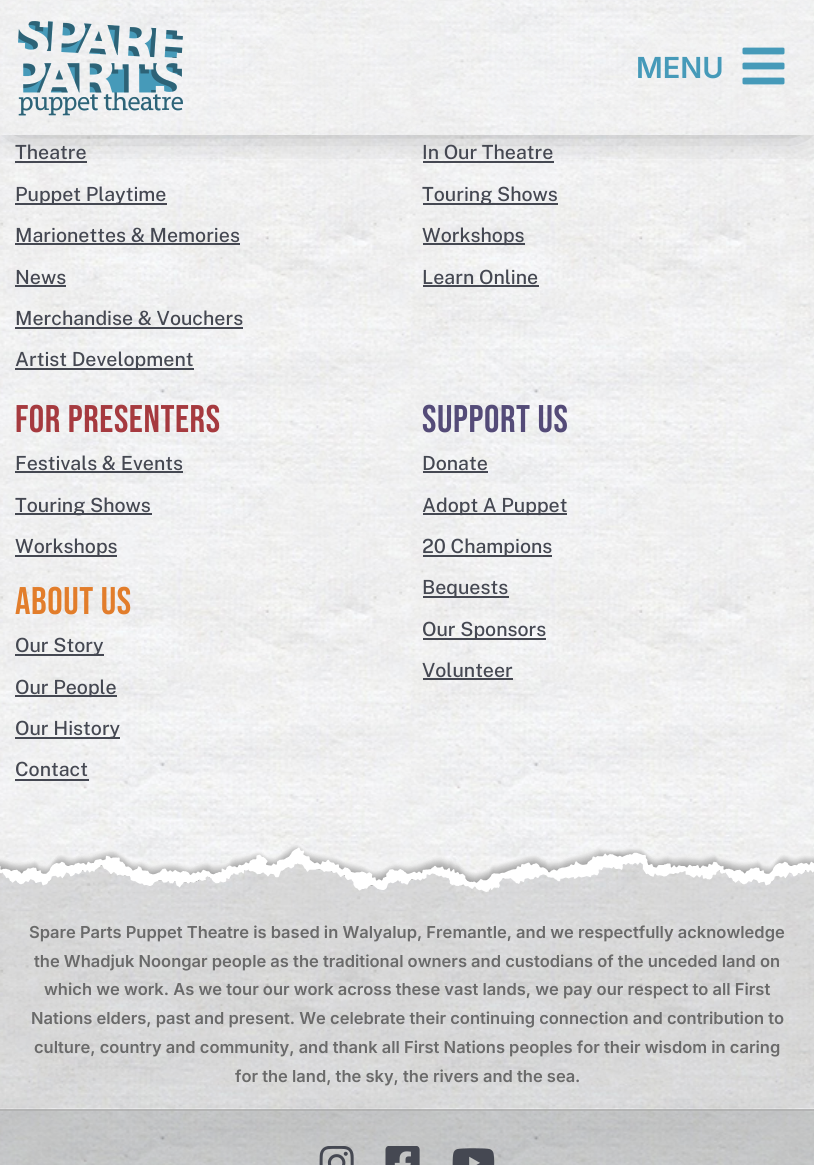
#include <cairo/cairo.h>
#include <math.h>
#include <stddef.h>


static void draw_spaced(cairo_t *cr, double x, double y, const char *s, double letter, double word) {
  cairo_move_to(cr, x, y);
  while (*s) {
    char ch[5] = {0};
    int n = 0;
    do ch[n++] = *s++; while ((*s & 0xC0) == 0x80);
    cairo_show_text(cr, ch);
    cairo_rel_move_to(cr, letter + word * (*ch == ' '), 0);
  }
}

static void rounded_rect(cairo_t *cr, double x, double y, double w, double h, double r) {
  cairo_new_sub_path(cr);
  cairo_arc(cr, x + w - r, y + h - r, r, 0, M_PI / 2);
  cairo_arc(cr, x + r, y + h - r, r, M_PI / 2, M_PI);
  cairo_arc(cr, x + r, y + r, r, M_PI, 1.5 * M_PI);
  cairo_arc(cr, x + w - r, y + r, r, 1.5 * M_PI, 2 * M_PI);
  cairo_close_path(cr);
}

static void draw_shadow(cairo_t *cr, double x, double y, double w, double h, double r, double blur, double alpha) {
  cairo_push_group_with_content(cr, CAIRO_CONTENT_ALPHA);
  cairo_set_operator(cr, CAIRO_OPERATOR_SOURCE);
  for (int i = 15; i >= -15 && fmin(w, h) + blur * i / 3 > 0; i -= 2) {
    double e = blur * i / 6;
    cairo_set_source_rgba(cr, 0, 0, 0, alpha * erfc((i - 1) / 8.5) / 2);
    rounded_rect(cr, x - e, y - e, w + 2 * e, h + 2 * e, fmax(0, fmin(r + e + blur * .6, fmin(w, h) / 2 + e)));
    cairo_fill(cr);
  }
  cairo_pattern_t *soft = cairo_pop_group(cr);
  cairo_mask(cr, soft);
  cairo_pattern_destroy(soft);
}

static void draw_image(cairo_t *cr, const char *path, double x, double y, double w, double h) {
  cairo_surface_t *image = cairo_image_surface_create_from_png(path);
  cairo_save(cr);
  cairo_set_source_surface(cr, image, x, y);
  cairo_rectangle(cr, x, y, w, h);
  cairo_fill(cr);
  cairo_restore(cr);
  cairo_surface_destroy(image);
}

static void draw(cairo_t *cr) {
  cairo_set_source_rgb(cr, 1, 1, 1);
  cairo_paint(cr);
  draw_image(cr, "images/1.png", 0, 0, 814, 1165);
  cairo_set_source_rgb(cr, 69 / 255.0, 72 / 255.0, 82 / 255.0);
  cairo_rectangle(cr, 15, 161, 72, 2);
  cairo_fill(cr);
  cairo_rectangle(cr, 423, 161, 131, 2);
  cairo_fill(cr);
  cairo_save(cr);
  cairo_rectangle(cr, 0, 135, 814, 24);
  cairo_clip(cr);
  cairo_set_source_rgb(cr, 0, 0, 0);
  draw_shadow(cr, 15, 15, 785, 105, 0, 22.5, 0.5);
  cairo_restore(cr);
  draw_image(cr, "images/2.png", 0, 0, 814, 135);
  draw_image(cr, "images/3.png", 18, 21, 165, 95);
  draw_image(cr, "images/4.png", 742, 47, 43, 38);
  cairo_rectangle(cr, 15, 203, 152, 2);
  cairo_fill(cr);
  cairo_rectangle(cr, 15, 243, 225, 2);
  cairo_fill(cr);
  cairo_rectangle(cr, 15, 285, 51, 2);
  cairo_fill(cr);
  cairo_rectangle(cr, 15, 327, 228, 2);
  cairo_fill(cr);
  cairo_rectangle(cr, 15, 368, 179, 2);
  cairo_fill(cr);
  cairo_rectangle(cr, 423, 203, 135, 2);
  cairo_fill(cr);
  cairo_rectangle(cr, 423, 243, 102, 2);
  cairo_fill(cr);
  cairo_rectangle(cr, 423, 285, 116, 2);
  cairo_fill(cr);
  cairo_rectangle(cr, 15, 471, 168, 2);
  cairo_fill(cr);
  cairo_rectangle(cr, 15, 513, 137, 2);
  cairo_fill(cr);
  cairo_rectangle(cr, 15, 555, 102, 2);
  cairo_fill(cr);
  cairo_rectangle(cr, 15, 654, 89, 2);
  cairo_fill(cr);
  cairo_rectangle(cr, 15, 695, 102, 2);
  cairo_fill(cr);
  cairo_rectangle(cr, 15, 737, 105, 2);
  cairo_fill(cr);
  cairo_rectangle(cr, 15, 779, 74, 2);
  cairo_fill(cr);
  cairo_rectangle(cr, 423, 471, 65, 2);
  cairo_fill(cr);
  cairo_rectangle(cr, 423, 513, 144, 2);
  cairo_fill(cr);
  cairo_rectangle(cr, 423, 555, 129, 2);
  cairo_fill(cr);
  cairo_rectangle(cr, 423, 596, 86, 2);
  cairo_fill(cr);
  cairo_rectangle(cr, 423, 638, 123, 2);
  cairo_fill(cr);
  cairo_rectangle(cr, 423, 678, 90, 2);
  cairo_fill(cr);
  draw_image(cr, "images/5.png", 0, 844, 814, 265);
  cairo_set_source_rgba(cr, 28 / 255.0, 29 / 255.0, 33 / 255.0, 0.21);
  cairo_rectangle(cr, 0, 1109, 814, 56);
  cairo_fill(cr);
  cairo_set_source_rgba(cr, 167 / 255.0, 167 / 255.0, 167 / 255.0, 0.56);
  cairo_rectangle(cr, 0, 1109, 814, 2);
  cairo_fill(cr);
  draw_image(cr, "images/6.png", 319, 1146, 35, 19);
  draw_image(cr, "images/7.png", 385, 1146, 35, 19);
  draw_image(cr, "images/8.png", 452, 1148, 43, 17);
  cairo_select_font_face(cr, "Inter SemiBold", CAIRO_FONT_SLANT_NORMAL, CAIRO_FONT_WEIGHT_NORMAL);
  cairo_set_font_size(cr, 29);
  cairo_set_source_rgb(cr, 70 / 255.0, 154 / 255.0, 185 / 255.0);
  cairo_move_to(cr, 636, 78);
  cairo_show_text(cr, "MENU");
  cairo_select_font_face(cr, "Public Sans Medium", CAIRO_FONT_SLANT_NORMAL, CAIRO_FONT_WEIGHT_NORMAL);
  cairo_set_font_size(cr, 19.5);
  cairo_set_source_rgb(cr, 69 / 255.0, 72 / 255.0, 82 / 255.0);
  cairo_move_to(cr, 15, 159);
  cairo_show_text(cr, "Theatre");
  cairo_move_to(cr, 15, 201);
  cairo_show_text(cr, "Puppet Playtime");
  cairo_move_to(cr, 15, 242);
  cairo_show_text(cr, "Marionettes & Memories");
  cairo_move_to(cr, 15, 284);
  cairo_show_text(cr, "News");
  cairo_move_to(cr, 15, 325);
  cairo_show_text(cr, "Merchandise & Vouchers");
  cairo_move_to(cr, 15, 366);
  cairo_show_text(cr, "Artist Development");
  cairo_move_to(cr, 422, 159);
  cairo_show_text(cr, "In Our Theatre");
  cairo_move_to(cr, 422, 201);
  cairo_show_text(cr, "Touring Shows");
  cairo_move_to(cr, 422, 242);
  cairo_show_text(cr, "Workshops");
  cairo_move_to(cr, 422, 284);
  cairo_show_text(cr, "Learn Online");
  cairo_select_font_face(cr, "Bebas Neue", CAIRO_FONT_SLANT_NORMAL, CAIRO_FONT_WEIGHT_NORMAL);
  cairo_set_font_size(cr, 38.5);
  cairo_set_source_rgb(cr, 166 / 255.0, 58 / 255.0, 63 / 255.0);
  draw_spaced(cr, 15, 432, "FOR PRESENTERS", 0.6, 0);
  cairo_select_font_face(cr, "Public Sans Medium", CAIRO_FONT_SLANT_NORMAL, CAIRO_FONT_WEIGHT_NORMAL);
  cairo_set_font_size(cr, 19.5);
  cairo_set_source_rgb(cr, 69 / 255.0, 72 / 255.0, 82 / 255.0);
  cairo_move_to(cr, 15, 470);
  cairo_show_text(cr, "Festivals & Events");
  cairo_move_to(cr, 15, 512);
  cairo_show_text(cr, "Touring Shows");
  cairo_move_to(cr, 15, 553);
  cairo_show_text(cr, "Workshops");
  cairo_select_font_face(cr, "Bebas Neue", CAIRO_FONT_SLANT_NORMAL, CAIRO_FONT_WEIGHT_NORMAL);
  cairo_set_font_size(cr, 38.5);
  cairo_set_source_rgb(cr, 226 / 255.0, 125 / 255.0, 43 / 255.0);
  draw_spaced(cr, 15, 614, "ABOUT US", 0.6, 0);
  cairo_select_font_face(cr, "Public Sans Medium", CAIRO_FONT_SLANT_NORMAL, CAIRO_FONT_WEIGHT_NORMAL);
  cairo_set_font_size(cr, 19.5);
  cairo_set_source_rgb(cr, 69 / 255.0, 72 / 255.0, 82 / 255.0);
  cairo_move_to(cr, 15, 652);
  cairo_show_text(cr, "Our Story");
  cairo_move_to(cr, 15, 694);
  cairo_show_text(cr, "Our People");
  cairo_move_to(cr, 15, 735);
  cairo_show_text(cr, "Our History");
  cairo_move_to(cr, 15, 776);
  cairo_show_text(cr, "Contact");
  cairo_select_font_face(cr, "Bebas Neue", CAIRO_FONT_SLANT_NORMAL, CAIRO_FONT_WEIGHT_NORMAL);
  cairo_set_font_size(cr, 38.5);
  cairo_set_source_rgb(cr, 84 / 255.0, 75 / 255.0, 120 / 255.0);
  draw_spaced(cr, 422, 432, "SUPPORT US", 0.6, 0);
  cairo_select_font_face(cr, "Public Sans Medium", CAIRO_FONT_SLANT_NORMAL, CAIRO_FONT_WEIGHT_NORMAL);
  cairo_set_font_size(cr, 19.5);
  cairo_set_source_rgb(cr, 69 / 255.0, 72 / 255.0, 82 / 255.0);
  cairo_move_to(cr, 422, 470);
  cairo_show_text(cr, "Donate");
  cairo_move_to(cr, 422, 512);
  cairo_show_text(cr, "Adopt A Puppet");
  cairo_move_to(cr, 422, 553);
  cairo_show_text(cr, "20 Champions");
  cairo_move_to(cr, 422, 594);
  cairo_show_text(cr, "Bequests");
  cairo_move_to(cr, 422, 636);
  cairo_show_text(cr, "Our Sponsors");
  cairo_move_to(cr, 422, 677);
  cairo_show_text(cr, "Volunteer");
  cairo_select_font_face(cr, "Inter SemiBold", CAIRO_FONT_SLANT_NORMAL, CAIRO_FONT_WEIGHT_NORMAL);
  cairo_set_font_size(cr, 16.5);
  cairo_set_source_rgb(cr, 106 / 255.0, 106 / 255.0, 106 / 255.0);
  cairo_move_to(cr, 29, 938);
  cairo_show_text(cr, "Spare Parts Puppet Theatre is based in Walyalup, Fremantle, and we respectfully acknowledge");
  cairo_move_to(cr, 34, 967);
  cairo_show_text(cr, "the Whadjuk Noongar people as the traditional owners and custodians of the unceded land on");
  cairo_move_to(cr, 44, 995);
  cairo_show_text(cr, "which we work. As we tour our work across these vast lands, we pay our respect to all First");
  cairo_move_to(cr, 31, 1024);
  cairo_show_text(cr, "Nations elders, past and present. We celebrate their continuing connection and contribution to");
  cairo_move_to(cr, 34, 1053);
  cairo_show_text(cr, "culture, country and community, and thank all First Nations peoples for their wisdom in caring");
  cairo_move_to(cr, 235, 1082);
  cairo_show_text(cr, "for the land, the sky, the rivers and the sea.");
}

int main(void) {
  cairo_surface_t *surface = cairo_image_surface_create(CAIRO_FORMAT_RGB24, 814, 1165);
  cairo_t *cr = cairo_create(surface);
  cairo_font_options_t *options = cairo_font_options_create();
  cairo_font_options_set_hint_metrics(options, CAIRO_HINT_METRICS_OFF);
  cairo_font_options_set_hint_style(options, CAIRO_HINT_STYLE_NONE);
  cairo_set_font_options(cr, options);
  cairo_set_miter_limit(cr, 4);
  draw(cr);
  cairo_surface_write_to_png(surface, "out.png");
  cairo_font_options_destroy(options);
  cairo_destroy(cr);
  cairo_surface_destroy(surface);
  return 0;
}
